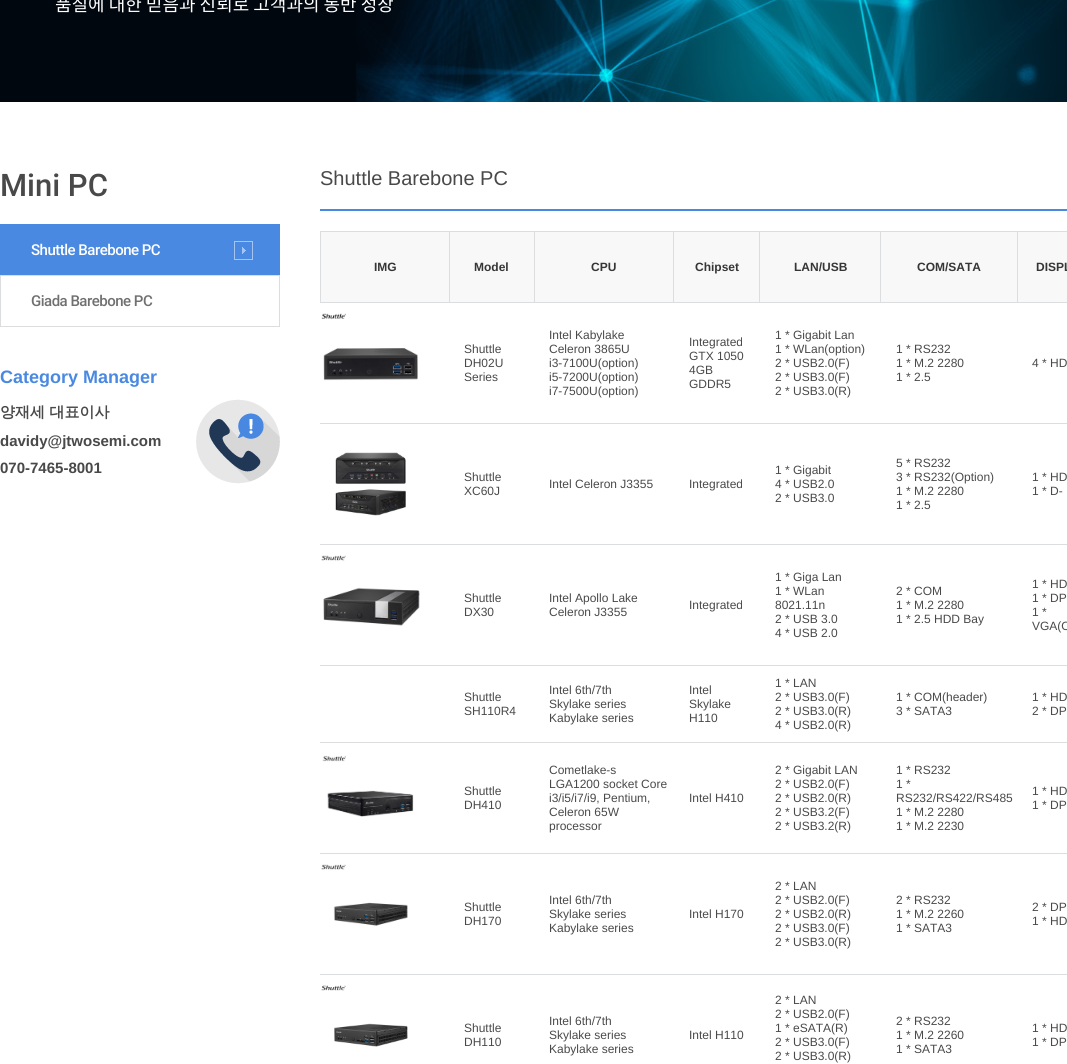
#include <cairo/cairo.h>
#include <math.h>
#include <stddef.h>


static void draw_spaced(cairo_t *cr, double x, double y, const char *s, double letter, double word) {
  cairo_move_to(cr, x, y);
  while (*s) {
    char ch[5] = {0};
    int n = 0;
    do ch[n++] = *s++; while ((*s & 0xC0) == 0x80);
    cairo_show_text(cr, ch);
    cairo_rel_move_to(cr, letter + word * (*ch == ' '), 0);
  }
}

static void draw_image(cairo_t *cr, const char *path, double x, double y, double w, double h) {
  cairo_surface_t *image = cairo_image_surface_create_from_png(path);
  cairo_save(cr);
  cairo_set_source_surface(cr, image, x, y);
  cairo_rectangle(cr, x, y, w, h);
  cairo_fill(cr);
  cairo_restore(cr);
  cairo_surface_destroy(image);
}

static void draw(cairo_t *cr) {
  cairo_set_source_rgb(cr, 1, 1, 1);
  cairo_paint(cr);
  cairo_set_source_rgb(cr, 1 / 255.0, 7 / 255.0, 15 / 255.0);
  cairo_rectangle(cr, 0, 0, 356, 102);
  cairo_fill(cr);
  draw_image(cr, "images/1.png", 356, 0, 711, 102);
  cairo_set_source_rgb(cr, 74 / 255.0, 137 / 255.0, 225 / 255.0);
  cairo_rectangle(cr, 0, 224, 280, 51);
  cairo_fill(cr);
  draw_image(cr, "images/2.png", 234, 241, 19, 19);
  cairo_rectangle(cr, 0.5, 275.5, 279, 51);
  cairo_set_source_rgb(cr, 220 / 255.0, 221 / 255.0, 222 / 255.0);
  cairo_set_line_width(cr, 1);
  cairo_stroke(cr);
  draw_image(cr, "images/3.png", 196, 399, 84, 85);
  cairo_set_source_rgb(cr, 74 / 255.0, 137 / 255.0, 225 / 255.0);
  cairo_rectangle(cr, 320, 209, 747, 2);
  cairo_fill(cr);
  cairo_set_source_rgb(cr, 248 / 255.0, 248 / 255.0, 248 / 255.0);
  cairo_rectangle(cr, 321, 232, 128, 70);
  cairo_fill(cr);
  cairo_set_source_rgb(cr, 220 / 255.0, 221 / 255.0, 222 / 255.0);
  cairo_rectangle(cr, 1017, 231, 50, 1);
  cairo_fill(cr);
  cairo_rectangle(cr, 1017, 302, 50, 1);
  cairo_fill(cr);
  cairo_rectangle(cr, 1017, 231, 1, 72);
  cairo_fill(cr);
  cairo_rectangle(cr, 880, 231, 138, 1);
  cairo_fill(cr);
  cairo_rectangle(cr, 880, 302, 138, 1);
  cairo_fill(cr);
  cairo_rectangle(cr, 880, 231, 1, 72);
  cairo_fill(cr);
  cairo_rectangle(cr, 759, 231, 122, 1);
  cairo_fill(cr);
  cairo_rectangle(cr, 759, 302, 122, 1);
  cairo_fill(cr);
  cairo_rectangle(cr, 759, 231, 1, 72);
  cairo_fill(cr);
  cairo_rectangle(cr, 673, 231, 87, 1);
  cairo_fill(cr);
  cairo_rectangle(cr, 673, 302, 87, 1);
  cairo_fill(cr);
  cairo_rectangle(cr, 673, 231, 1, 72);
  cairo_fill(cr);
  cairo_rectangle(cr, 534, 231, 140, 1);
  cairo_fill(cr);
  cairo_rectangle(cr, 534, 302, 140, 1);
  cairo_fill(cr);
  cairo_rectangle(cr, 534, 231, 1, 72);
  cairo_fill(cr);
  cairo_rectangle(cr, 449, 231, 86, 1);
  cairo_fill(cr);
  cairo_rectangle(cr, 449, 302, 86, 1);
  cairo_fill(cr);
  cairo_rectangle(cr, 449, 231, 1, 72);
  cairo_fill(cr);
  cairo_rectangle(cr, 320, 231, 130, 1);
  cairo_fill(cr);
  cairo_rectangle(cr, 320, 302, 130, 1);
  cairo_fill(cr);
  cairo_rectangle(cr, 320, 231, 1, 72);
  cairo_fill(cr);
  cairo_set_source_rgb(cr, 248 / 255.0, 248 / 255.0, 248 / 255.0);
  cairo_rectangle(cr, 450, 232, 84, 70);
  cairo_fill(cr);
  cairo_rectangle(cr, 535, 232, 138, 70);
  cairo_fill(cr);
  cairo_rectangle(cr, 674, 232, 85, 70);
  cairo_fill(cr);
  cairo_rectangle(cr, 760, 232, 120, 70);
  cairo_fill(cr);
  cairo_rectangle(cr, 881, 232, 136, 70);
  cairo_fill(cr);
  cairo_rectangle(cr, 1018, 232, 49, 70);
  cairo_fill(cr);
  draw_image(cr, "images/4.png", 321, 313, 97, 68);
  cairo_set_source_rgb(cr, 220 / 255.0, 221 / 255.0, 222 / 255.0);
  cairo_rectangle(cr, 320, 423, 747, 1);
  cairo_fill(cr);
  draw_image(cr, "images/5.png", 335, 452, 71, 64);
  cairo_rectangle(cr, 320, 544, 747, 1);
  cairo_fill(cr);
  draw_image(cr, "images/6.png", 321, 555, 99, 71);
  cairo_rectangle(cr, 320, 665, 747, 1);
  cairo_fill(cr);
  cairo_rectangle(cr, 320, 742, 747, 1);
  cairo_fill(cr);
  draw_image(cr, "images/7.png", 322, 755, 92, 62);
  cairo_rectangle(cr, 320, 853, 747, 1);
  cairo_fill(cr);
  draw_image(cr, "images/8.png", 321, 864, 87, 62);
  cairo_rectangle(cr, 320, 974, 747, 1);
  cairo_fill(cr);
  draw_image(cr, "images/9.png", 321, 985, 87, 62);
  cairo_select_font_face(cr, "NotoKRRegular", CAIRO_FONT_SLANT_NORMAL, CAIRO_FONT_WEIGHT_NORMAL);
  cairo_set_font_size(cr, 18);
  cairo_set_source_rgb(cr, 1, 1, 1);
  cairo_move_to(cr, 55, 11);
  cairo_show_text(cr, "품질에 대한 믿음과 신뢰로 고객과의 동반 성장");
  cairo_select_font_face(cr, "Roboto Medium", CAIRO_FONT_SLANT_NORMAL, CAIRO_FONT_WEIGHT_NORMAL);
  cairo_set_font_size(cr, 31);
  cairo_set_source_rgb(cr, 73 / 255.0, 73 / 255.0, 73 / 255.0);
  cairo_move_to(cr, 0, 196);
  cairo_show_text(cr, "Mini PC");
  cairo_set_font_size(cr, 15);
  cairo_set_source_rgb(cr, 1, 1, 1);
  draw_spaced(cr, 31, 255, "Shuttle Barebone PC", -0.5, 0);
  cairo_set_source_rgb(cr, 112 / 255.0, 112 / 255.0, 112 / 255.0);
  draw_spaced(cr, 31, 306, "Giada Barebone PC", -0.5, 0);
  cairo_select_font_face(cr, "Arimo", CAIRO_FONT_SLANT_NORMAL, CAIRO_FONT_WEIGHT_BOLD);
  cairo_set_font_size(cr, 18);
  cairo_set_source_rgb(cr, 74 / 255.0, 137 / 255.0, 225 / 255.0);
  cairo_move_to(cr, 0, 383);
  cairo_show_text(cr, "Category Manager");
  cairo_select_font_face(cr, "WenQuanYi Zen Hei", CAIRO_FONT_SLANT_NORMAL, CAIRO_FONT_WEIGHT_BOLD);
  cairo_set_font_size(cr, 15);
  cairo_set_source_rgb(cr, 73 / 255.0, 73 / 255.0, 73 / 255.0);
  cairo_move_to(cr, 0, 417);
  cairo_show_text(cr, "양재세 대표이사");
  cairo_select_font_face(cr, "Arimo", CAIRO_FONT_SLANT_NORMAL, CAIRO_FONT_WEIGHT_BOLD);
  cairo_move_to(cr, 0, 446);
  cairo_show_text(cr, "davidy@jtwosemi.com");
  cairo_move_to(cr, 0, 473);
  cairo_show_text(cr, "070-7465-8001");
  cairo_select_font_face(cr, "Arimo", CAIRO_FONT_SLANT_NORMAL, CAIRO_FONT_WEIGHT_NORMAL);
  cairo_set_font_size(cr, 20);
  cairo_move_to(cr, 320, 185);
  cairo_show_text(cr, "Shuttle Barebone PC");
  cairo_select_font_face(cr, "Liberation Sans", CAIRO_FONT_SLANT_NORMAL, CAIRO_FONT_WEIGHT_BOLD);
  cairo_set_font_size(cr, 12);
  cairo_set_source_rgb(cr, 54 / 255.0, 54 / 255.0, 54 / 255.0);
  cairo_move_to(cr, 374, 271);
  cairo_show_text(cr, "IMG");
  cairo_move_to(cr, 474, 271);
  cairo_show_text(cr, "Model");
  cairo_move_to(cr, 591, 271);
  cairo_show_text(cr, "CPU");
  cairo_move_to(cr, 695, 271);
  cairo_show_text(cr, "Chipset");
  cairo_move_to(cr, 794, 271);
  cairo_show_text(cr, "LAN/USB");
  cairo_move_to(cr, 917, 271);
  cairo_show_text(cr, "COM/SATA");
  cairo_move_to(cr, 1036, 271);
  cairo_show_text(cr, "DISPL");
  cairo_select_font_face(cr, "Liberation Sans", CAIRO_FONT_SLANT_NORMAL, CAIRO_FONT_WEIGHT_NORMAL);
  cairo_set_source_rgb(cr, 73 / 255.0, 73 / 255.0, 73 / 255.0);
  cairo_move_to(cr, 464, 353);
  cairo_show_text(cr, "Shuttle");
  cairo_move_to(cr, 464, 367);
  cairo_show_text(cr, "DH02U");
  cairo_move_to(cr, 464, 381);
  cairo_show_text(cr, "Series");
  cairo_move_to(cr, 549, 339);
  cairo_show_text(cr, "Intel Kabylake");
  cairo_move_to(cr, 549, 353);
  cairo_show_text(cr, "Celeron 3865U");
  cairo_move_to(cr, 549, 367);
  cairo_show_text(cr, "i3-7100U(option)");
  cairo_move_to(cr, 549, 381);
  cairo_show_text(cr, "i5-7200U(option)");
  cairo_move_to(cr, 549, 395);
  cairo_show_text(cr, "i7-7500U(option)");
  cairo_move_to(cr, 689, 346);
  cairo_show_text(cr, "Integrated");
  cairo_move_to(cr, 689, 360);
  cairo_show_text(cr, "GTX 1050");
  cairo_move_to(cr, 689, 374);
  cairo_show_text(cr, "4GB");
  cairo_move_to(cr, 689, 388);
  cairo_show_text(cr, "GDDR5");
  cairo_move_to(cr, 775, 339);
  cairo_show_text(cr, "1 * Gigabit Lan");
  cairo_move_to(cr, 775, 353);
  cairo_show_text(cr, "1 * WLan(option)");
  cairo_move_to(cr, 775, 367);
  cairo_show_text(cr, "2 * USB2.0(F)");
  cairo_move_to(cr, 775, 381);
  cairo_show_text(cr, "2 * USB3.0(F)");
  cairo_move_to(cr, 775, 395);
  cairo_show_text(cr, "2 * USB3.0(R)");
  cairo_move_to(cr, 896, 353);
  cairo_show_text(cr, "1 * RS232");
  cairo_move_to(cr, 896, 367);
  cairo_show_text(cr, "1 * M.2 2280");
  cairo_move_to(cr, 896, 381);
  cairo_show_text(cr, "1 * 2.5");
  cairo_move_to(cr, 1032, 367);
  cairo_show_text(cr, "4 * HD");
  cairo_move_to(cr, 464, 481);
  cairo_show_text(cr, "Shuttle");
  cairo_move_to(cr, 464, 495);
  cairo_show_text(cr, "XC60J");
  cairo_move_to(cr, 549, 488);
  cairo_show_text(cr, "Intel Celeron J3355");
  cairo_move_to(cr, 689, 488);
  cairo_show_text(cr, "Integrated");
  cairo_move_to(cr, 775, 474);
  cairo_show_text(cr, "1 * Gigabit");
  cairo_move_to(cr, 775, 488);
  cairo_show_text(cr, "4 * USB2.0");
  cairo_move_to(cr, 775, 502);
  cairo_show_text(cr, "2 * USB3.0");
  cairo_move_to(cr, 896, 467);
  cairo_show_text(cr, "5 * RS232");
  cairo_move_to(cr, 896, 481);
  cairo_show_text(cr, "3 * RS232(Option)");
  cairo_move_to(cr, 896, 495);
  cairo_show_text(cr, "1 * M.2 2280");
  cairo_move_to(cr, 896, 509);
  cairo_show_text(cr, "1 * 2.5");
  cairo_move_to(cr, 1032, 481);
  cairo_show_text(cr, "1 * HD");
  cairo_move_to(cr, 1032, 495);
  cairo_show_text(cr, "1 * D-");
  cairo_move_to(cr, 464, 602);
  cairo_show_text(cr, "Shuttle");
  cairo_move_to(cr, 464, 616);
  cairo_show_text(cr, "DX30");
  cairo_move_to(cr, 549, 602);
  cairo_show_text(cr, "Intel Apollo Lake");
  cairo_move_to(cr, 549, 616);
  cairo_show_text(cr, "Celeron J3355");
  cairo_move_to(cr, 689, 609);
  cairo_show_text(cr, "Integrated");
  cairo_move_to(cr, 775, 581);
  cairo_show_text(cr, "1 * Giga Lan");
  cairo_move_to(cr, 775, 595);
  cairo_show_text(cr, "1 * WLan");
  cairo_move_to(cr, 775, 609);
  cairo_show_text(cr, "8021.11n");
  cairo_move_to(cr, 775, 623);
  cairo_show_text(cr, "2 * USB 3.0");
  cairo_move_to(cr, 775, 637);
  cairo_show_text(cr, "4 * USB 2.0");
  cairo_move_to(cr, 896, 595);
  cairo_show_text(cr, "2 * COM");
  cairo_move_to(cr, 896, 609);
  cairo_show_text(cr, "1 * M.2 2280");
  cairo_move_to(cr, 896, 623);
  cairo_show_text(cr, "1 * 2.5 HDD Bay");
  cairo_move_to(cr, 1032, 588);
  cairo_show_text(cr, "1 * HD");
  cairo_move_to(cr, 1032, 602);
  cairo_show_text(cr, "1 * DP");
  cairo_move_to(cr, 1032, 616);
  cairo_show_text(cr, "1 *");
  cairo_move_to(cr, 1032, 630);
  cairo_show_text(cr, "VGA(O");
  cairo_move_to(cr, 464, 701);
  cairo_show_text(cr, "Shuttle");
  cairo_move_to(cr, 464, 715);
  cairo_show_text(cr, "SH110R4");
  cairo_move_to(cr, 549, 694);
  cairo_show_text(cr, "Intel 6th/7th");
  cairo_move_to(cr, 549, 708);
  cairo_show_text(cr, "Skylake series");
  cairo_move_to(cr, 549, 722);
  cairo_show_text(cr, "Kabylake series");
  cairo_move_to(cr, 689, 694);
  cairo_show_text(cr, "Intel");
  cairo_move_to(cr, 689, 708);
  cairo_show_text(cr, "Skylake");
  cairo_move_to(cr, 689, 722);
  cairo_show_text(cr, "H110");
  cairo_move_to(cr, 775, 687);
  cairo_show_text(cr, "1 * LAN");
  cairo_move_to(cr, 775, 701);
  cairo_show_text(cr, "2 * USB3.0(F)");
  cairo_move_to(cr, 775, 715);
  cairo_show_text(cr, "2 * USB3.0(R)");
  cairo_move_to(cr, 775, 729);
  cairo_show_text(cr, "4 * USB2.0(R)");
  cairo_move_to(cr, 896, 701);
  cairo_show_text(cr, "1 * COM(header)");
  cairo_move_to(cr, 896, 715);
  cairo_show_text(cr, "3 * SATA3");
  cairo_move_to(cr, 1032, 701);
  cairo_show_text(cr, "1 * HD");
  cairo_move_to(cr, 1032, 715);
  cairo_show_text(cr, "2 * DP");
  cairo_move_to(cr, 464, 795);
  cairo_show_text(cr, "Shuttle");
  cairo_move_to(cr, 464, 809);
  cairo_show_text(cr, "DH410");
  cairo_move_to(cr, 549, 774);
  cairo_show_text(cr, "Cometlake-s");
  cairo_move_to(cr, 549, 788);
  cairo_show_text(cr, "LGA1200 socket Core");
  cairo_move_to(cr, 549, 802);
  cairo_show_text(cr, "i3/i5/i7/i9, Pentium,");
  cairo_move_to(cr, 549, 816);
  cairo_show_text(cr, "Celeron 65W");
  cairo_move_to(cr, 549, 830);
  cairo_show_text(cr, "processor");
  cairo_move_to(cr, 689, 802);
  cairo_show_text(cr, "Intel H410");
  cairo_move_to(cr, 775, 774);
  cairo_show_text(cr, "2 * Gigabit LAN");
  cairo_move_to(cr, 775, 788);
  cairo_show_text(cr, "2 * USB2.0(F)");
  cairo_move_to(cr, 775, 802);
  cairo_show_text(cr, "2 * USB2.0(R)");
  cairo_move_to(cr, 775, 816);
  cairo_show_text(cr, "2 * USB3.2(F)");
  cairo_move_to(cr, 775, 830);
  cairo_show_text(cr, "2 * USB3.2(R)");
  cairo_move_to(cr, 896, 774);
  cairo_show_text(cr, "1 * RS232");
  cairo_move_to(cr, 896, 788);
  cairo_show_text(cr, "1 *");
  cairo_move_to(cr, 896, 802);
  cairo_show_text(cr, "RS232/RS422/RS485");
  cairo_move_to(cr, 896, 816);
  cairo_show_text(cr, "1 * M.2 2280");
  cairo_move_to(cr, 896, 830);
  cairo_show_text(cr, "1 * M.2 2230");
  cairo_move_to(cr, 1032, 795);
  cairo_show_text(cr, "1 * HD");
  cairo_move_to(cr, 1032, 809);
  cairo_show_text(cr, "1 * DP");
  cairo_move_to(cr, 464, 911);
  cairo_show_text(cr, "Shuttle");
  cairo_move_to(cr, 464, 925);
  cairo_show_text(cr, "DH170");
  cairo_move_to(cr, 549, 904);
  cairo_show_text(cr, "Intel 6th/7th");
  cairo_move_to(cr, 549, 918);
  cairo_show_text(cr, "Skylake series");
  cairo_move_to(cr, 549, 932);
  cairo_show_text(cr, "Kabylake series");
  cairo_move_to(cr, 689, 918);
  cairo_show_text(cr, "Intel H170");
  cairo_move_to(cr, 775, 890);
  cairo_show_text(cr, "2 * LAN");
  cairo_move_to(cr, 775, 904);
  cairo_show_text(cr, "2 * USB2.0(F)");
  cairo_move_to(cr, 775, 918);
  cairo_show_text(cr, "2 * USB2.0(R)");
  cairo_move_to(cr, 775, 932);
  cairo_show_text(cr, "2 * USB3.0(F)");
  cairo_move_to(cr, 775, 946);
  cairo_show_text(cr, "2 * USB3.0(R)");
  cairo_move_to(cr, 896, 904);
  cairo_show_text(cr, "2 * RS232");
  cairo_move_to(cr, 896, 918);
  cairo_show_text(cr, "1 * M.2 2260");
  cairo_move_to(cr, 896, 932);
  cairo_show_text(cr, "1 * SATA3");
  cairo_move_to(cr, 1032, 911);
  cairo_show_text(cr, "2 * DP");
  cairo_move_to(cr, 1032, 925);
  cairo_show_text(cr, "1 * HD");
  cairo_move_to(cr, 464, 1032);
  cairo_show_text(cr, "Shuttle");
  cairo_move_to(cr, 464, 1046);
  cairo_show_text(cr, "DH110");
  cairo_move_to(cr, 549, 1025);
  cairo_show_text(cr, "Intel 6th/7th");
  cairo_move_to(cr, 549, 1039);
  cairo_show_text(cr, "Skylake series");
  cairo_move_to(cr, 549, 1053);
  cairo_show_text(cr, "Kabylake series");
  cairo_move_to(cr, 689, 1039);
  cairo_show_text(cr, "Intel H110");
  cairo_move_to(cr, 775, 1004);
  cairo_show_text(cr, "2 * LAN");
  cairo_move_to(cr, 775, 1018);
  cairo_show_text(cr, "2 * USB2.0(F)");
  cairo_move_to(cr, 775, 1032);
  cairo_show_text(cr, "1 * eSATA(R)");
  cairo_move_to(cr, 775, 1046);
  cairo_show_text(cr, "2 * USB3.0(F)");
  cairo_move_to(cr, 775, 1060);
  cairo_show_text(cr, "2 * USB3.0(R)");
  cairo_move_to(cr, 896, 1025);
  cairo_show_text(cr, "2 * RS232");
  cairo_move_to(cr, 896, 1039);
  cairo_show_text(cr, "1 * M.2 2260");
  cairo_move_to(cr, 896, 1053);
  cairo_show_text(cr, "1 * SATA3");
  cairo_move_to(cr, 1032, 1032);
  cairo_show_text(cr, "1 * HD");
  cairo_move_to(cr, 1032, 1046);
  cairo_show_text(cr, "1 * DP");
}

int main(void) {
  cairo_surface_t *surface = cairo_image_surface_create(CAIRO_FORMAT_RGB24, 1067, 1064);
  cairo_t *cr = cairo_create(surface);
  cairo_font_options_t *options = cairo_font_options_create();
  cairo_font_options_set_hint_metrics(options, CAIRO_HINT_METRICS_OFF);
  cairo_font_options_set_hint_style(options, CAIRO_HINT_STYLE_NONE);
  cairo_set_font_options(cr, options);
  cairo_set_miter_limit(cr, 4);
  draw(cr);
  cairo_surface_write_to_png(surface, "out.png");
  cairo_font_options_destroy(options);
  cairo_destroy(cr);
  cairo_surface_destroy(surface);
  return 0;
}
